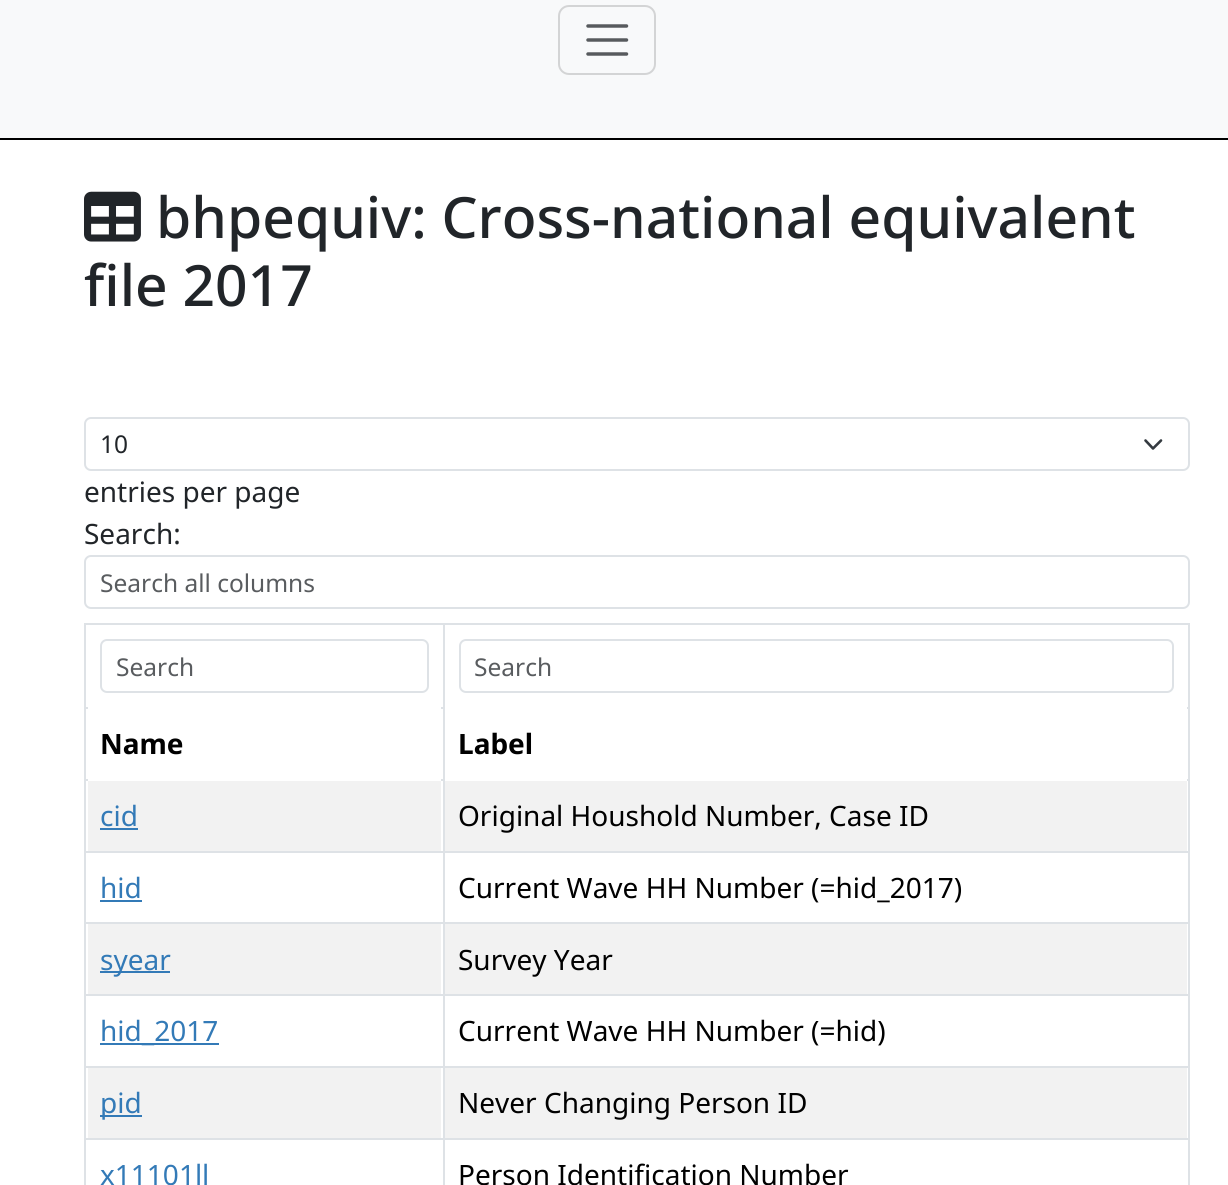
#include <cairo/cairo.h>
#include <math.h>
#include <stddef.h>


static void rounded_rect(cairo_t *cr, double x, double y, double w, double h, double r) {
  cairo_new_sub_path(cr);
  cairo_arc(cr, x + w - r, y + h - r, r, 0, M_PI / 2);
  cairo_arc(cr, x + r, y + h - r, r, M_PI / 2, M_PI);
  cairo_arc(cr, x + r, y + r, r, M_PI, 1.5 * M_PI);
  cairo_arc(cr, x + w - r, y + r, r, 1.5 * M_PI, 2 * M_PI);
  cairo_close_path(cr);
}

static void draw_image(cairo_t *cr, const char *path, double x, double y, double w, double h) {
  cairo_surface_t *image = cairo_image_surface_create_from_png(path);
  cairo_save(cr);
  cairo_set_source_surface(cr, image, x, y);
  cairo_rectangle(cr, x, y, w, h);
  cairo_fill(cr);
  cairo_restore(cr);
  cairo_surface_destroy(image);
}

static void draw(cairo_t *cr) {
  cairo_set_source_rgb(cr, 1, 1, 1);
  cairo_paint(cr);
  cairo_set_source_rgb(cr, 248 / 255.0, 249 / 255.0, 250 / 255.0);
  cairo_rectangle(cr, 0, 0, 1228, 138);
  cairo_fill(cr);
  cairo_set_source_rgb(cr, 0, 0, 0);
  cairo_rectangle(cr, 0, 138, 1228, 2);
  cairo_fill(cr);
  rounded_rect(cr, 559, 6, 96, 68, 10);
  cairo_set_source_rgb(cr, 211 / 255.0, 212 / 255.0, 213 / 255.0);
  cairo_stroke(cr);
  cairo_new_path(cr);
  cairo_move_to(cr, 588, 26);
  cairo_line_to(cr, 626.5, 26);
  cairo_move_to(cr, 588, 40);
  cairo_line_to(cr, 626.5, 40);
  cairo_move_to(cr, 588, 54);
  cairo_line_to(cr, 626.5, 54);
  cairo_set_source_rgb(cr, 87 / 255.0, 90 / 255.0, 93 / 255.0);
  cairo_set_line_width(cr, 3.5);
  cairo_set_line_cap(cr, CAIRO_LINE_CAP_ROUND);
  cairo_stroke(cr);
  draw_image(cr, "images/1.png", 84, 191, 57, 51);
  cairo_new_path(cr);
  cairo_move_to(cr, 1145.5, 440.5);
  cairo_line_to(cr, 1153, 448.5);
  cairo_line_to(cr, 1161, 440.5);
  cairo_set_source_rgb(cr, 52 / 255.0, 58 / 255.0, 64 / 255.0);
  cairo_set_line_width(cr, 2.6);
  cairo_set_line_join(cr, CAIRO_LINE_JOIN_ROUND);
  cairo_stroke(cr);
  rounded_rect(cr, 85, 418, 1104, 52, 6);
  cairo_set_source_rgb(cr, 222 / 255.0, 226 / 255.0, 230 / 255.0);
  cairo_set_line_width(cr, 2);
  cairo_set_line_cap(cr, CAIRO_LINE_CAP_BUTT);
  cairo_set_line_join(cr, CAIRO_LINE_JOIN_MITER);
  cairo_stroke(cr);
  rounded_rect(cr, 85, 556, 1104, 52, 6);
  cairo_stroke(cr);
  cairo_rectangle(cr, 84, 623, 1106, 2);
  cairo_fill(cr);
  cairo_rectangle(cr, 84, 707, 1106, 2);
  cairo_fill(cr);
  cairo_set_source_rgb(cr, 1, 1, 1);
  cairo_rectangle(cr, 88, 707, 353, 2);
  cairo_fill(cr);
  rounded_rect(cr, 101, 640, 327, 52, 6);
  cairo_set_source_rgb(cr, 222 / 255.0, 226 / 255.0, 230 / 255.0);
  cairo_stroke(cr);
  cairo_set_source_rgb(cr, 1, 1, 1);
  cairo_rectangle(cr, 445, 707, 742, 2);
  cairo_fill(cr);
  rounded_rect(cr, 460, 640, 713, 52, 6);
  cairo_set_source_rgb(cr, 222 / 255.0, 226 / 255.0, 230 / 255.0);
  cairo_stroke(cr);
  cairo_rectangle(cr, 84, 779, 1106, 2);
  cairo_fill(cr);
  cairo_set_source_rgb(cr, 1, 1, 1);
  cairo_rectangle(cr, 88, 779, 353, 2);
  cairo_fill(cr);
  cairo_rectangle(cr, 445, 779, 742, 2);
  cairo_fill(cr);
  cairo_set_source_rgb(cr, 242 / 255.0, 242 / 255.0, 242 / 255.0);
  cairo_rectangle(cr, 88, 781, 353, 70);
  cairo_fill(cr);
  cairo_set_source_rgb(cr, 51 / 255.0, 122 / 255.0, 183 / 255.0);
  cairo_rectangle(cr, 100, 828, 38, 2);
  cairo_fill(cr);
  cairo_set_source_rgb(cr, 242 / 255.0, 242 / 255.0, 242 / 255.0);
  cairo_rectangle(cr, 445, 781, 742, 70);
  cairo_fill(cr);
  cairo_set_source_rgb(cr, 222 / 255.0, 226 / 255.0, 230 / 255.0);
  cairo_rectangle(cr, 84, 851, 1106, 2);
  cairo_fill(cr);
  cairo_set_source_rgb(cr, 51 / 255.0, 122 / 255.0, 183 / 255.0);
  cairo_rectangle(cr, 100, 900, 42, 2);
  cairo_fill(cr);
  cairo_set_source_rgb(cr, 222 / 255.0, 226 / 255.0, 230 / 255.0);
  cairo_rectangle(cr, 84, 922, 1106, 2);
  cairo_fill(cr);
  cairo_set_source_rgb(cr, 242 / 255.0, 242 / 255.0, 242 / 255.0);
  cairo_rectangle(cr, 88, 924, 353, 70);
  cairo_fill(cr);
  cairo_set_source_rgb(cr, 51 / 255.0, 122 / 255.0, 183 / 255.0);
  cairo_rectangle(cr, 100, 971, 70, 2);
  cairo_fill(cr);
  cairo_set_source_rgb(cr, 242 / 255.0, 242 / 255.0, 242 / 255.0);
  cairo_rectangle(cr, 445, 924, 742, 70);
  cairo_fill(cr);
  cairo_set_source_rgb(cr, 222 / 255.0, 226 / 255.0, 230 / 255.0);
  cairo_rectangle(cr, 84, 994, 1106, 2);
  cairo_fill(cr);
  cairo_set_source_rgb(cr, 51 / 255.0, 122 / 255.0, 183 / 255.0);
  cairo_rectangle(cr, 100, 1043, 119, 2);
  cairo_fill(cr);
  cairo_set_source_rgb(cr, 222 / 255.0, 226 / 255.0, 230 / 255.0);
  cairo_rectangle(cr, 84, 1066, 1106, 2);
  cairo_fill(cr);
  cairo_set_source_rgb(cr, 242 / 255.0, 242 / 255.0, 242 / 255.0);
  cairo_rectangle(cr, 88, 1068, 353, 70);
  cairo_fill(cr);
  cairo_set_source_rgb(cr, 51 / 255.0, 122 / 255.0, 183 / 255.0);
  cairo_rectangle(cr, 100, 1115, 42, 2);
  cairo_fill(cr);
  cairo_set_source_rgb(cr, 242 / 255.0, 242 / 255.0, 242 / 255.0);
  cairo_rectangle(cr, 445, 1068, 742, 70);
  cairo_fill(cr);
  cairo_set_source_rgb(cr, 222 / 255.0, 226 / 255.0, 230 / 255.0);
  cairo_rectangle(cr, 84, 1138, 1106, 2);
  cairo_fill(cr);
  cairo_rectangle(cr, 84, 623, 2, 562);
  cairo_fill(cr);
  cairo_rectangle(cr, 1188, 623, 2, 562);
  cairo_fill(cr);
  cairo_rectangle(cr, 443, 623, 2, 562);
  cairo_fill(cr);
  cairo_select_font_face(cr, "Noto Sans Medium", CAIRO_FONT_SLANT_NORMAL, CAIRO_FONT_WEIGHT_NORMAL);
  cairo_set_font_size(cr, 56.9);
  cairo_set_source_rgb(cr, 33 / 255.0, 37 / 255.0, 41 / 255.0);
  cairo_move_to(cr, 156, 238);
  cairo_show_text(cr, "bhpequiv: Cross-national equivalent");
  cairo_move_to(cr, 84, 306);
  cairo_show_text(cr, "file 2017");
  cairo_select_font_face(cr, "Noto Sans", CAIRO_FONT_SLANT_NORMAL, CAIRO_FONT_WEIGHT_NORMAL);
  cairo_set_font_size(cr, 24.5);
  cairo_move_to(cr, 100, 453);
  cairo_show_text(cr, "10");
  cairo_set_font_size(cr, 28);
  cairo_move_to(cr, 84, 502);
  cairo_show_text(cr, "entries per page");
  cairo_move_to(cr, 84, 544);
  cairo_show_text(cr, "Search:");
  cairo_set_font_size(cr, 24.5);
  cairo_set_source_rgb(cr, 89 / 255.0, 92 / 255.0, 95 / 255.0);
  cairo_move_to(cr, 100, 592);
  cairo_show_text(cr, "Search all columns");
  cairo_move_to(cr, 116, 676);
  cairo_show_text(cr, "Search");
  cairo_move_to(cr, 474, 676);
  cairo_show_text(cr, "Search");
  cairo_select_font_face(cr, "Noto Sans", CAIRO_FONT_SLANT_NORMAL, CAIRO_FONT_WEIGHT_BOLD);
  cairo_set_font_size(cr, 28);
  cairo_set_source_rgb(cr, 0, 0, 0);
  cairo_move_to(cr, 100, 754);
  cairo_show_text(cr, "Name");
  cairo_move_to(cr, 458, 754);
  cairo_show_text(cr, "Label");
  cairo_select_font_face(cr, "Noto Sans", CAIRO_FONT_SLANT_NORMAL, CAIRO_FONT_WEIGHT_NORMAL);
  cairo_set_source_rgb(cr, 51 / 255.0, 122 / 255.0, 183 / 255.0);
  cairo_move_to(cr, 100, 826);
  cairo_show_text(cr, "cid");
  cairo_set_source_rgb(cr, 0, 0, 0);
  cairo_move_to(cr, 458, 826);
  cairo_show_text(cr, "Original Houshold Number, Case ID");
  cairo_set_source_rgb(cr, 51 / 255.0, 122 / 255.0, 183 / 255.0);
  cairo_move_to(cr, 100, 898);
  cairo_show_text(cr, "hid");
  cairo_set_source_rgb(cr, 0, 0, 0);
  cairo_move_to(cr, 458, 898);
  cairo_show_text(cr, "Current Wave HH Number (=hid_2017)");
  cairo_set_source_rgb(cr, 51 / 255.0, 122 / 255.0, 183 / 255.0);
  cairo_move_to(cr, 100, 970);
  cairo_show_text(cr, "syear");
  cairo_set_source_rgb(cr, 0, 0, 0);
  cairo_move_to(cr, 458, 970);
  cairo_show_text(cr, "Survey Year");
  cairo_set_source_rgb(cr, 51 / 255.0, 122 / 255.0, 183 / 255.0);
  cairo_move_to(cr, 100, 1041);
  cairo_show_text(cr, "hid_2017");
  cairo_set_source_rgb(cr, 0, 0, 0);
  cairo_move_to(cr, 458, 1041);
  cairo_show_text(cr, "Current Wave HH Number (=hid)");
  cairo_set_source_rgb(cr, 51 / 255.0, 122 / 255.0, 183 / 255.0);
  cairo_move_to(cr, 100, 1113);
  cairo_show_text(cr, "pid");
  cairo_set_source_rgb(cr, 0, 0, 0);
  cairo_move_to(cr, 458, 1113);
  cairo_show_text(cr, "Never Changing Person ID");
  cairo_set_source_rgb(cr, 51 / 255.0, 122 / 255.0, 183 / 255.0);
  cairo_move_to(cr, 100, 1185);
  cairo_show_text(cr, "x11101ll");
  cairo_set_source_rgb(cr, 0, 0, 0);
  cairo_move_to(cr, 458, 1185);
  cairo_show_text(cr, "Person Identification Number");
}

int main(void) {
  cairo_surface_t *surface = cairo_image_surface_create(CAIRO_FORMAT_RGB24, 1228, 1185);
  cairo_t *cr = cairo_create(surface);
  cairo_font_options_t *options = cairo_font_options_create();
  cairo_font_options_set_hint_metrics(options, CAIRO_HINT_METRICS_OFF);
  cairo_font_options_set_hint_style(options, CAIRO_HINT_STYLE_NONE);
  cairo_set_font_options(cr, options);
  cairo_set_miter_limit(cr, 4);
  draw(cr);
  cairo_surface_write_to_png(surface, "out.png");
  cairo_font_options_destroy(options);
  cairo_destroy(cr);
  cairo_surface_destroy(surface);
  return 0;
}
